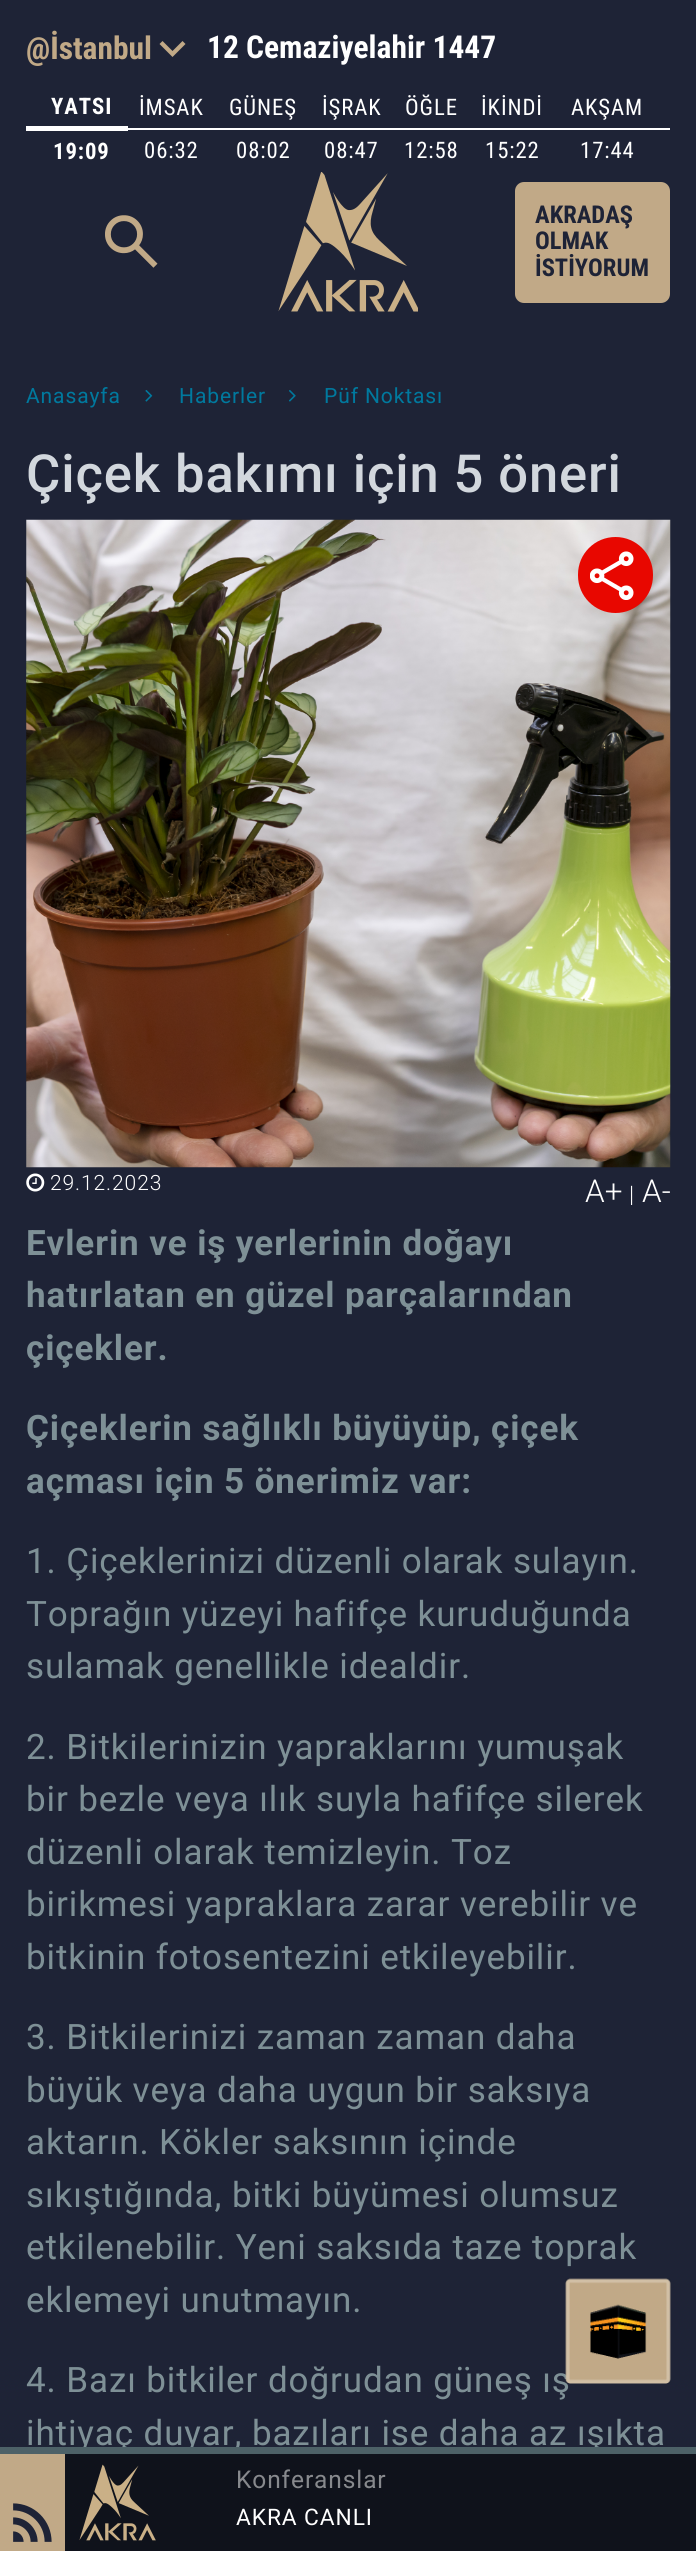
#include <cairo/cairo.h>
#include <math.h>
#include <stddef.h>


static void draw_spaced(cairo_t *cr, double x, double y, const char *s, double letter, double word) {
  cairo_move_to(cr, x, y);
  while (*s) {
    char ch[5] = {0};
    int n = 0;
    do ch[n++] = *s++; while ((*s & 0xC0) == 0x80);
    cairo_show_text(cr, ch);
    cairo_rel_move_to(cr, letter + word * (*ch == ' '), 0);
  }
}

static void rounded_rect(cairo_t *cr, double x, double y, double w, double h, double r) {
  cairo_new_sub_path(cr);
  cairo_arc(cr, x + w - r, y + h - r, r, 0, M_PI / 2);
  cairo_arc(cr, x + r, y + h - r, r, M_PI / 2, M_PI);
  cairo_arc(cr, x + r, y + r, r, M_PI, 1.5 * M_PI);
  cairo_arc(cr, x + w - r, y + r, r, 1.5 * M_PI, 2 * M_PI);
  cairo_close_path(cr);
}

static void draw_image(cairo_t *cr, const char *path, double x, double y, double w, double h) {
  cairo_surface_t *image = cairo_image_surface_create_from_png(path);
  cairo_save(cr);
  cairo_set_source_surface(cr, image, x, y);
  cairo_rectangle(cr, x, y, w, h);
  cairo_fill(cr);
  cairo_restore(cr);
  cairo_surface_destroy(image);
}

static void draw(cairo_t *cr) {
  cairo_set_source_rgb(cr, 30 / 255.0, 35 / 255.0, 54 / 255.0);
  cairo_paint(cr);
  cairo_set_source_rgb(cr, 193 / 255.0, 169 / 255.0, 135 / 255.0);
  cairo_new_path(cr);
  cairo_move_to(cr, 172.5, 57);
  cairo_line_to(cr, 159.5, 44);
  cairo_line_to(cr, 162.5, 41);
  cairo_line_to(cr, 172.5, 51);
  cairo_line_to(cr, 182.5, 41);
  cairo_line_to(cr, 185.5, 44);
  cairo_close_path(cr);
  cairo_fill(cr);
  cairo_set_source_rgb(cr, 1, 1, 1);
  cairo_rectangle(cr, 124, 128, 546, 2);
  cairo_fill(cr);
  cairo_rectangle(cr, 26, 126, 102, 5);
  cairo_fill(cr);
  draw_image(cr, "images/1.png", 105, 215, 53, 53);
  draw_image(cr, "images/2.png", 278, 172, 140, 140);
  cairo_set_source_rgb(cr, 193 / 255.0, 169 / 255.0, 135 / 255.0);
  rounded_rect(cr, 515, 182, 155, 121, 9);
  cairo_fill(cr);
  draw_image(cr, "images/3.png", 145, 390, 8, 12);
  draw_image(cr, "images/4.png", 289, 390, 7, 12);
  draw_image(cr, "images/5.png", 26, 519, 645, 649);
  cairo_set_source_rgb(cr, 232 / 255.0, 7 / 255.0, 0);
  rounded_rect(cr, 578, 537, 75, 76, 37.5);
  cairo_fill(cr);
  draw_image(cr, "images/6.png", 590, 551, 44, 49);
  draw_image(cr, "images/7.png", 26, 1173, 19, 19);
  cairo_set_source_rgb(cr, 15 / 255.0, 18 / 255.0, 27 / 255.0);
  cairo_rectangle(cr, 65, 2454, 631, 97);
  cairo_fill(cr);
  cairo_set_source_rgb(cr, 193 / 255.0, 169 / 255.0, 135 / 255.0);
  cairo_rectangle(cr, 0, 2454, 65, 97);
  cairo_fill(cr);
  draw_image(cr, "images/9.png", 13, 2503, 39, 39);
  draw_image(cr, "images/10.png", 79, 2464, 77, 77);
  cairo_select_font_face(cr, "Roboto Condensed", CAIRO_FONT_SLANT_NORMAL, CAIRO_FONT_WEIGHT_BOLD);
  cairo_set_font_size(cr, 31.5);
  cairo_move_to(cr, 26, 59);
  cairo_show_text(cr, "@İstanbul");
  cairo_set_source_rgb(cr, 1, 1, 1);
  cairo_move_to(cr, 207, 58);
  cairo_show_text(cr, "12 Cemaziyelahir 1447");
  cairo_set_font_size(cr, 22.75);
  draw_spaced(cr, 51, 114, "YATSI", 0.9, 0);
  cairo_select_font_face(cr, "Roboto Condensed", CAIRO_FONT_SLANT_NORMAL, CAIRO_FONT_WEIGHT_NORMAL);
  draw_spaced(cr, 139, 115, "İMSAK", 0.9, 0);
  draw_spaced(cr, 229, 115, "GÜNEŞ", 0.9, 0);
  draw_spaced(cr, 322, 115, "İŞRAK", 0.9, 0);
  draw_spaced(cr, 405, 115, "ÖĞLE", 0.9, 0);
  draw_spaced(cr, 481, 115, "İKİNDİ", 0.9, 0);
  draw_spaced(cr, 571, 115, "AKŞAM", 0.9, 0);
  cairo_select_font_face(cr, "Roboto Condensed", CAIRO_FONT_SLANT_NORMAL, CAIRO_FONT_WEIGHT_BOLD);
  draw_spaced(cr, 53, 159, "19:09", 0.9, 0);
  cairo_select_font_face(cr, "Roboto Condensed", CAIRO_FONT_SLANT_NORMAL, CAIRO_FONT_WEIGHT_NORMAL);
  draw_spaced(cr, 144, 158, "06:32", 0.9, 0);
  draw_spaced(cr, 236, 158, "08:02", 0.9, 0);
  draw_spaced(cr, 324, 158, "08:47", 0.9, 0);
  draw_spaced(cr, 404, 158, "12:58", 0.9, 0);
  draw_spaced(cr, 485, 158, "15:22", 0.9, 0);
  draw_spaced(cr, 580, 158, "17:44", 0.9, 0);
  cairo_select_font_face(cr, "Roboto Condensed", CAIRO_FONT_SLANT_NORMAL, CAIRO_FONT_WEIGHT_BOLD);
  cairo_set_font_size(cr, 24.5);
  cairo_set_source_rgb(cr, 30 / 255.0, 35 / 255.0, 54 / 255.0);
  cairo_move_to(cr, 535, 223);
  cairo_show_text(cr, "AKRADAŞ");
  cairo_move_to(cr, 535, 249);
  cairo_show_text(cr, "OLMAK");
  cairo_move_to(cr, 535, 276);
  cairo_show_text(cr, "İSTİYORUM");
  cairo_select_font_face(cr, "Roboto", CAIRO_FONT_SLANT_NORMAL, CAIRO_FONT_WEIGHT_NORMAL);
  cairo_set_font_size(cr, 21);
  cairo_set_source_rgb(cr, 0, 121 / 255.0, 158 / 255.0);
  draw_spaced(cr, 26, 403, "Anasayfa", 0.9, 0);
  draw_spaced(cr, 179, 403, "Haberler", 0.9, 0);
  draw_spaced(cr, 324, 403, "Püf Noktası", 0.9, 0);
  cairo_select_font_face(cr, "Roboto Medium", CAIRO_FONT_SLANT_NORMAL, CAIRO_FONT_WEIGHT_NORMAL);
  cairo_set_font_size(cr, 52.5);
  cairo_set_source_rgb(cr, 210 / 255.0, 215 / 255.0, 221 / 255.0);
  draw_spaced(cr, 26, 492, "Çiçek bakımı için 5 öneri", 0.9, 0);
  cairo_select_font_face(cr, "Roboto Light", CAIRO_FONT_SLANT_NORMAL, CAIRO_FONT_WEIGHT_NORMAL);
  cairo_set_font_size(cr, 21);
  cairo_set_source_rgb(cr, 1, 1, 1);
  draw_spaced(cr, 50, 1190, "29.12.2023", 0.9, 0);
  cairo_set_font_size(cr, 31.5);
  cairo_move_to(cr, 585, 1202);
  cairo_show_text(cr, "A+");
  cairo_set_font_size(cr, 22.75);
  draw_spaced(cr, 629, 1202, "|", 0.9, 0);
  cairo_set_font_size(cr, 31.5);
  cairo_move_to(cr, 642, 1202);
  cairo_show_text(cr, "A-");
  cairo_select_font_face(cr, "Roboto", CAIRO_FONT_SLANT_NORMAL, CAIRO_FONT_WEIGHT_BOLD);
  cairo_set_font_size(cr, 35);
  cairo_set_source_rgb(cr, 126 / 255.0, 144 / 255.0, 150 / 255.0);
  draw_spaced(cr, 26, 1255, "Evlerin ve iş yerlerinin doğayı", 0.9, 0);
  draw_spaced(cr, 26, 1307, "hatırlatan en güzel parçalarından", 0.9, 0);
  draw_spaced(cr, 26, 1360, "çiçekler.", 0.9, 0);
  draw_spaced(cr, 26, 1440, "Çiçeklerin sağlıklı büyüyüp, çiçek", 0.9, 0);
  draw_spaced(cr, 26, 1493, "açması için 5 önerimiz var:", 0.9, 0);
  cairo_select_font_face(cr, "Roboto", CAIRO_FONT_SLANT_NORMAL, CAIRO_FONT_WEIGHT_NORMAL);
  draw_spaced(cr, 26, 1573, "1. Çiçeklerinizi düzenli olarak sulayın.", 0.9, 0);
  draw_spaced(cr, 26, 1626, "Toprağın yüzeyi hafifçe kuruduğunda", 0.9, 0);
  draw_spaced(cr, 26, 1678, "sulamak genellikle idealdir.", 0.9, 0);
  draw_spaced(cr, 26, 1759, "2. Bitkilerinizin yapraklarını yumuşak", 0.9, 0);
  draw_spaced(cr, 26, 1811, "bir bezle veya ılık suyla hafifçe silerek", 0.9, 0);
  draw_spaced(cr, 26, 1864, "düzenli olarak temizleyin. Toz", 0.9, 0);
  draw_spaced(cr, 26, 1916, "birikmesi yapraklara zarar verebilir ve", 0.9, 0);
  draw_spaced(cr, 26, 1969, "bitkinin fotosentezini etkileyebilir.", 0.9, 0);
  draw_spaced(cr, 26, 2049, "3. Bitkilerinizi zaman zaman daha", 0.9, 0);
  draw_spaced(cr, 26, 2102, "büyük veya daha uygun bir saksıya", 0.9, 0);
  draw_spaced(cr, 26, 2154, "aktarın. Kökler saksının içinde", 0.9, 0);
  draw_spaced(cr, 26, 2207, "sıkıştığında, bitki büyümesi olumsuz", 0.9, 0);
  draw_spaced(cr, 26, 2259, "etkilenebilir. Yeni saksıda taze toprak", 0.9, 0);
  draw_spaced(cr, 26, 2312, "eklemeyi unutmayın.", 0.9, 0);
  draw_spaced(cr, 26, 2392, "4. Bazı bitkiler doğrudan güneş ış", 0.9, 0);
  draw_spaced(cr, 26, 2445, "ihtiyaç duyar, bazıları ise daha az ışıkta", 0.9, 0);
  draw_image(cr, "images/8.png", 565, 2278, 106, 106);
  cairo_set_source_rgb(cr, 77 / 255.0, 97 / 255.0, 103 / 255.0);
  cairo_rectangle(cr, 0, 2447, 696, 7);
  cairo_fill(cr);
  cairo_set_font_size(cr, 24.5);
  cairo_set_source_rgb(cr, 135 / 255.0, 137 / 255.0, 141 / 255.0);
  draw_spaced(cr, 236, 2488, "Konferanslar", 0.9, 0);
  cairo_set_font_size(cr, 22.75);
  cairo_set_source_rgb(cr, 1, 1, 1);
  draw_spaced(cr, 236, 2525, "AKRA CANLI", 0.9, 0);
}

int main(void) {
  cairo_surface_t *surface = cairo_image_surface_create(CAIRO_FORMAT_RGB24, 696, 2551);
  cairo_t *cr = cairo_create(surface);
  cairo_font_options_t *options = cairo_font_options_create();
  cairo_font_options_set_hint_metrics(options, CAIRO_HINT_METRICS_OFF);
  cairo_font_options_set_hint_style(options, CAIRO_HINT_STYLE_NONE);
  cairo_set_font_options(cr, options);
  cairo_set_miter_limit(cr, 4);
  draw(cr);
  cairo_surface_write_to_png(surface, "out.png");
  cairo_font_options_destroy(options);
  cairo_destroy(cr);
  cairo_surface_destroy(surface);
  return 0;
}
